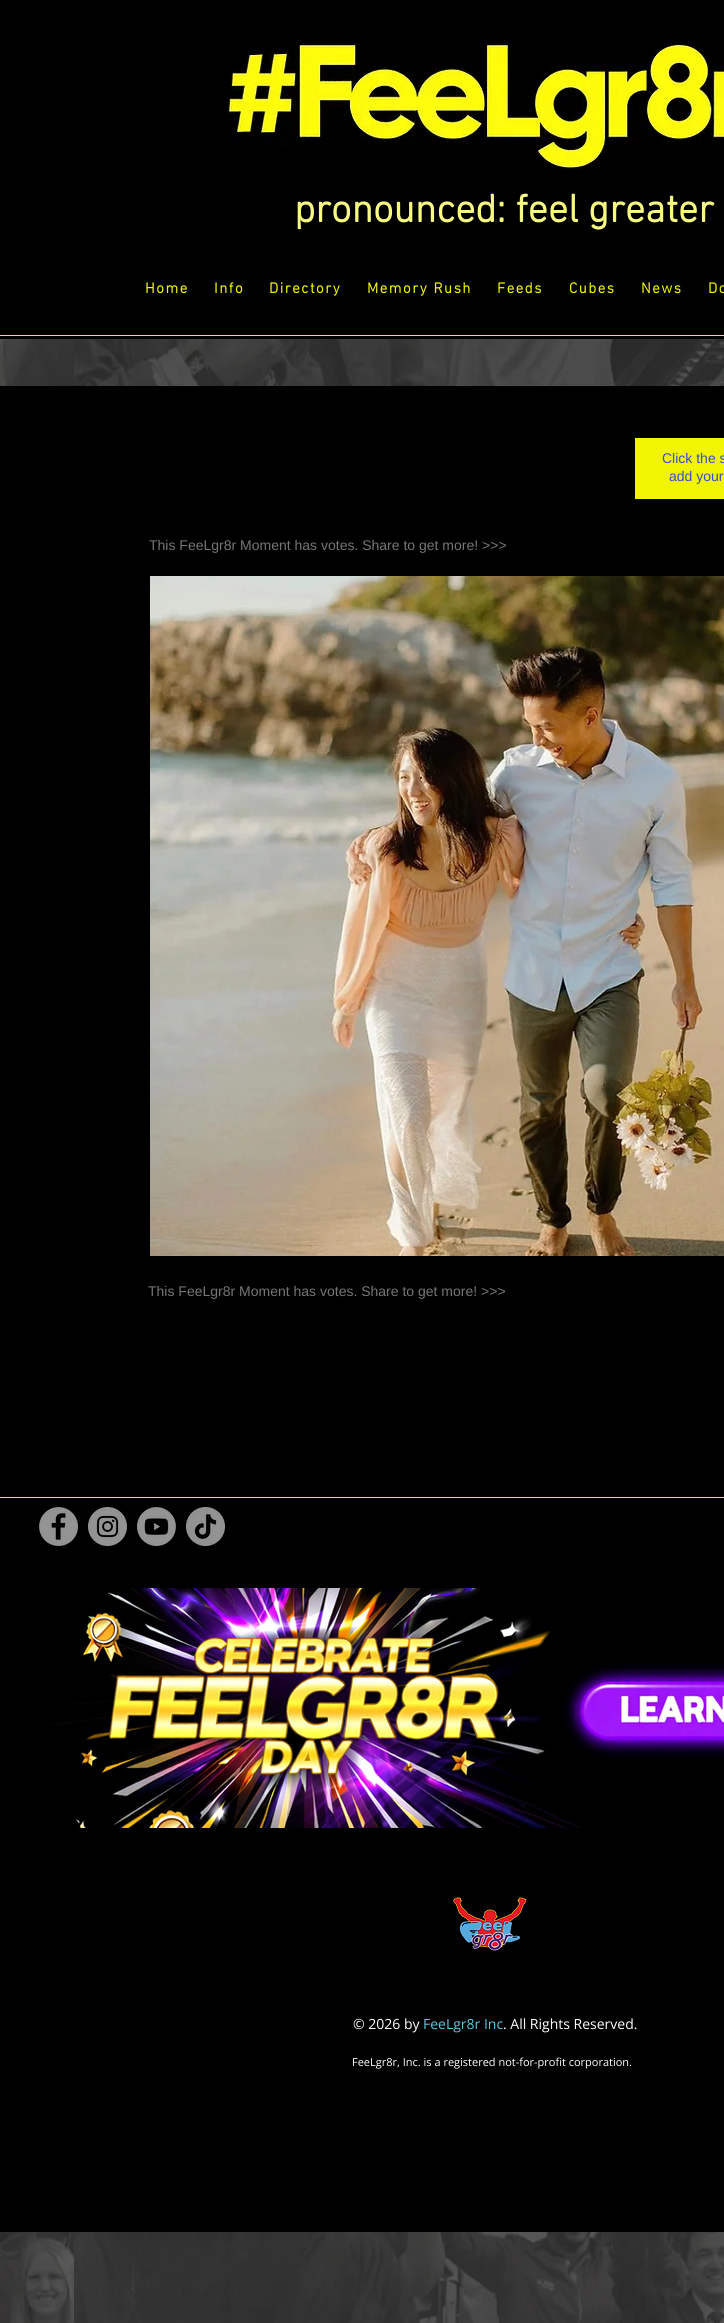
#include <cairo/cairo.h>
#include <math.h>
#include <stddef.h>


static void draw_spaced(cairo_t *cr, double x, double y, const char *s, double letter, double word) {
  cairo_move_to(cr, x, y);
  while (*s) {
    char ch[5] = {0};
    int n = 0;
    do ch[n++] = *s++; while ((*s & 0xC0) == 0x80);
    cairo_show_text(cr, ch);
    cairo_rel_move_to(cr, letter + word * (*ch == ' '), 0);
  }
}

static void draw_image(cairo_t *cr, const char *path, double x, double y, double w, double h) {
  cairo_surface_t *image = cairo_image_surface_create_from_png(path);
  cairo_save(cr);
  cairo_set_source_surface(cr, image, x, y);
  cairo_rectangle(cr, x, y, w, h);
  cairo_fill(cr);
  cairo_restore(cr);
  cairo_surface_destroy(image);
}

static void draw(cairo_t *cr) {
  cairo_set_source_rgb(cr, 1, 1, 1);
  cairo_paint(cr);
  cairo_set_source_rgb(cr, 0, 0, 0);
  cairo_rectangle(cr, 0, 0, 724, 339);
  cairo_fill(cr);
  draw_image(cr, "images/1.png", 222, 42, 502, 128);
  cairo_set_source_rgb(cr, 247 / 255.0, 235 / 255.0, 5 / 255.0);
  cairo_rectangle(cr, 0, 335, 724, 1);
  cairo_fill(cr);
  draw_image(cr, "images/9.png", 0, 339, 724, 1984);
  cairo_set_source_rgb(cr, 0, 0, 0);
  cairo_rectangle(cr, 0, 386, 724, 1846);
  cairo_fill(cr);
  cairo_set_source_rgb(cr, 241 / 255.0, 245 / 255.0, 2 / 255.0);
  cairo_rectangle(cr, 635, 438, 89, 61);
  cairo_fill(cr);
  draw_image(cr, "images/2.png", 150, 576, 574, 680);
  cairo_set_source_rgb(cr, 247 / 255.0, 235 / 255.0, 5 / 255.0);
  cairo_rectangle(cr, 0, 1497, 724, 1);
  cairo_fill(cr);
  draw_image(cr, "images/3.png", 39, 1507, 39, 39);
  draw_image(cr, "images/4.png", 88, 1507, 39, 39);
  draw_image(cr, "images/5.png", 137, 1507, 39, 39);
  draw_image(cr, "images/6.png", 186, 1507, 39, 39);
  draw_image(cr, "images/7.png", 51, 1588, 673, 240);
  draw_image(cr, "images/8.png", 453, 1897, 74, 54);
  cairo_select_font_face(cr, "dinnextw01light", CAIRO_FONT_SLANT_NORMAL, CAIRO_FONT_WEIGHT_BOLD);
  cairo_set_font_size(cr, 40);
  cairo_set_source_rgb(cr, 247 / 255.0, 250 / 255.0, 129 / 255.0);
  cairo_move_to(cr, 294, 222);
  cairo_show_text(cr, "pronounced: feel greater");
  cairo_set_font_size(cr, 15);
  cairo_set_source_rgb(cr, 241 / 255.0, 245 / 255.0, 2 / 255.0);
  draw_spaced(cr, 145, 293, "Home", 1.5, 0);
  draw_spaced(cr, 214, 293, "Info", 1.5, 0);
  draw_spaced(cr, 269, 293, "Directory", 1.5, 0);
  draw_spaced(cr, 367, 293, "Memory Rush", 1.5, 0);
  draw_spaced(cr, 497, 293, "Feeds", 1.5, 0);
  draw_spaced(cr, 569, 293, "Cubes", 1.5, 0);
  draw_spaced(cr, 641, 293, "News", 1.5, 0);
  draw_spaced(cr, 708, 293, "Do", 1.5, 0);
  cairo_select_font_face(cr, "Liberation Sans", CAIRO_FONT_SLANT_NORMAL, CAIRO_FONT_WEIGHT_NORMAL);
  cairo_set_font_size(cr, 14);
  cairo_set_source_rgb(cr, 56 / 255.0, 74 / 255.0, 211 / 255.0);
  cairo_move_to(cr, 662, 463);
  cairo_show_text(cr, "Click the s");
  cairo_move_to(cr, 669, 481);
  cairo_show_text(cr, "add your");
  cairo_set_source_rgb(cr, 118 / 255.0, 118 / 255.0, 118 / 255.0);
  cairo_move_to(cr, 149, 550);
  cairo_show_text(cr, "This FeeLgr8r Moment has votes. Share to get more! >>>");
  cairo_move_to(cr, 148, 1296);
  cairo_show_text(cr, "This FeeLgr8r Moment has votes. Share to get more! >>>");
  cairo_select_font_face(cr, "Open Sans", CAIRO_FONT_SLANT_NORMAL, CAIRO_FONT_WEIGHT_NORMAL);
  cairo_set_source_rgb(cr, 1, 1, 1);
  cairo_move_to(cr, 353, 2029);
  cairo_show_text(cr, "© 2026 by");
  cairo_set_source_rgb(cr, 91 / 255.0, 201 / 255.0, 222 / 255.0);
  cairo_move_to(cr, 423, 2029);
  cairo_show_text(cr, "FeeLgr8r Inc");
  cairo_set_source_rgb(cr, 1, 1, 1);
  cairo_move_to(cr, 503, 2029);
  cairo_show_text(cr, ". All Rights Reserved.");
  cairo_set_font_size(cr, 11);
  cairo_move_to(cr, 352, 2066);
  cairo_show_text(cr, "FeeLgr8r, Inc. is a registered not-for-profit corporation.");
}

int main(void) {
  cairo_surface_t *surface = cairo_image_surface_create(CAIRO_FORMAT_RGB24, 724, 2323);
  cairo_t *cr = cairo_create(surface);
  cairo_font_options_t *options = cairo_font_options_create();
  cairo_font_options_set_hint_metrics(options, CAIRO_HINT_METRICS_OFF);
  cairo_font_options_set_hint_style(options, CAIRO_HINT_STYLE_NONE);
  cairo_set_font_options(cr, options);
  cairo_set_miter_limit(cr, 4);
  draw(cr);
  cairo_surface_write_to_png(surface, "out.png");
  cairo_font_options_destroy(options);
  cairo_destroy(cr);
  cairo_surface_destroy(surface);
  return 0;
}
